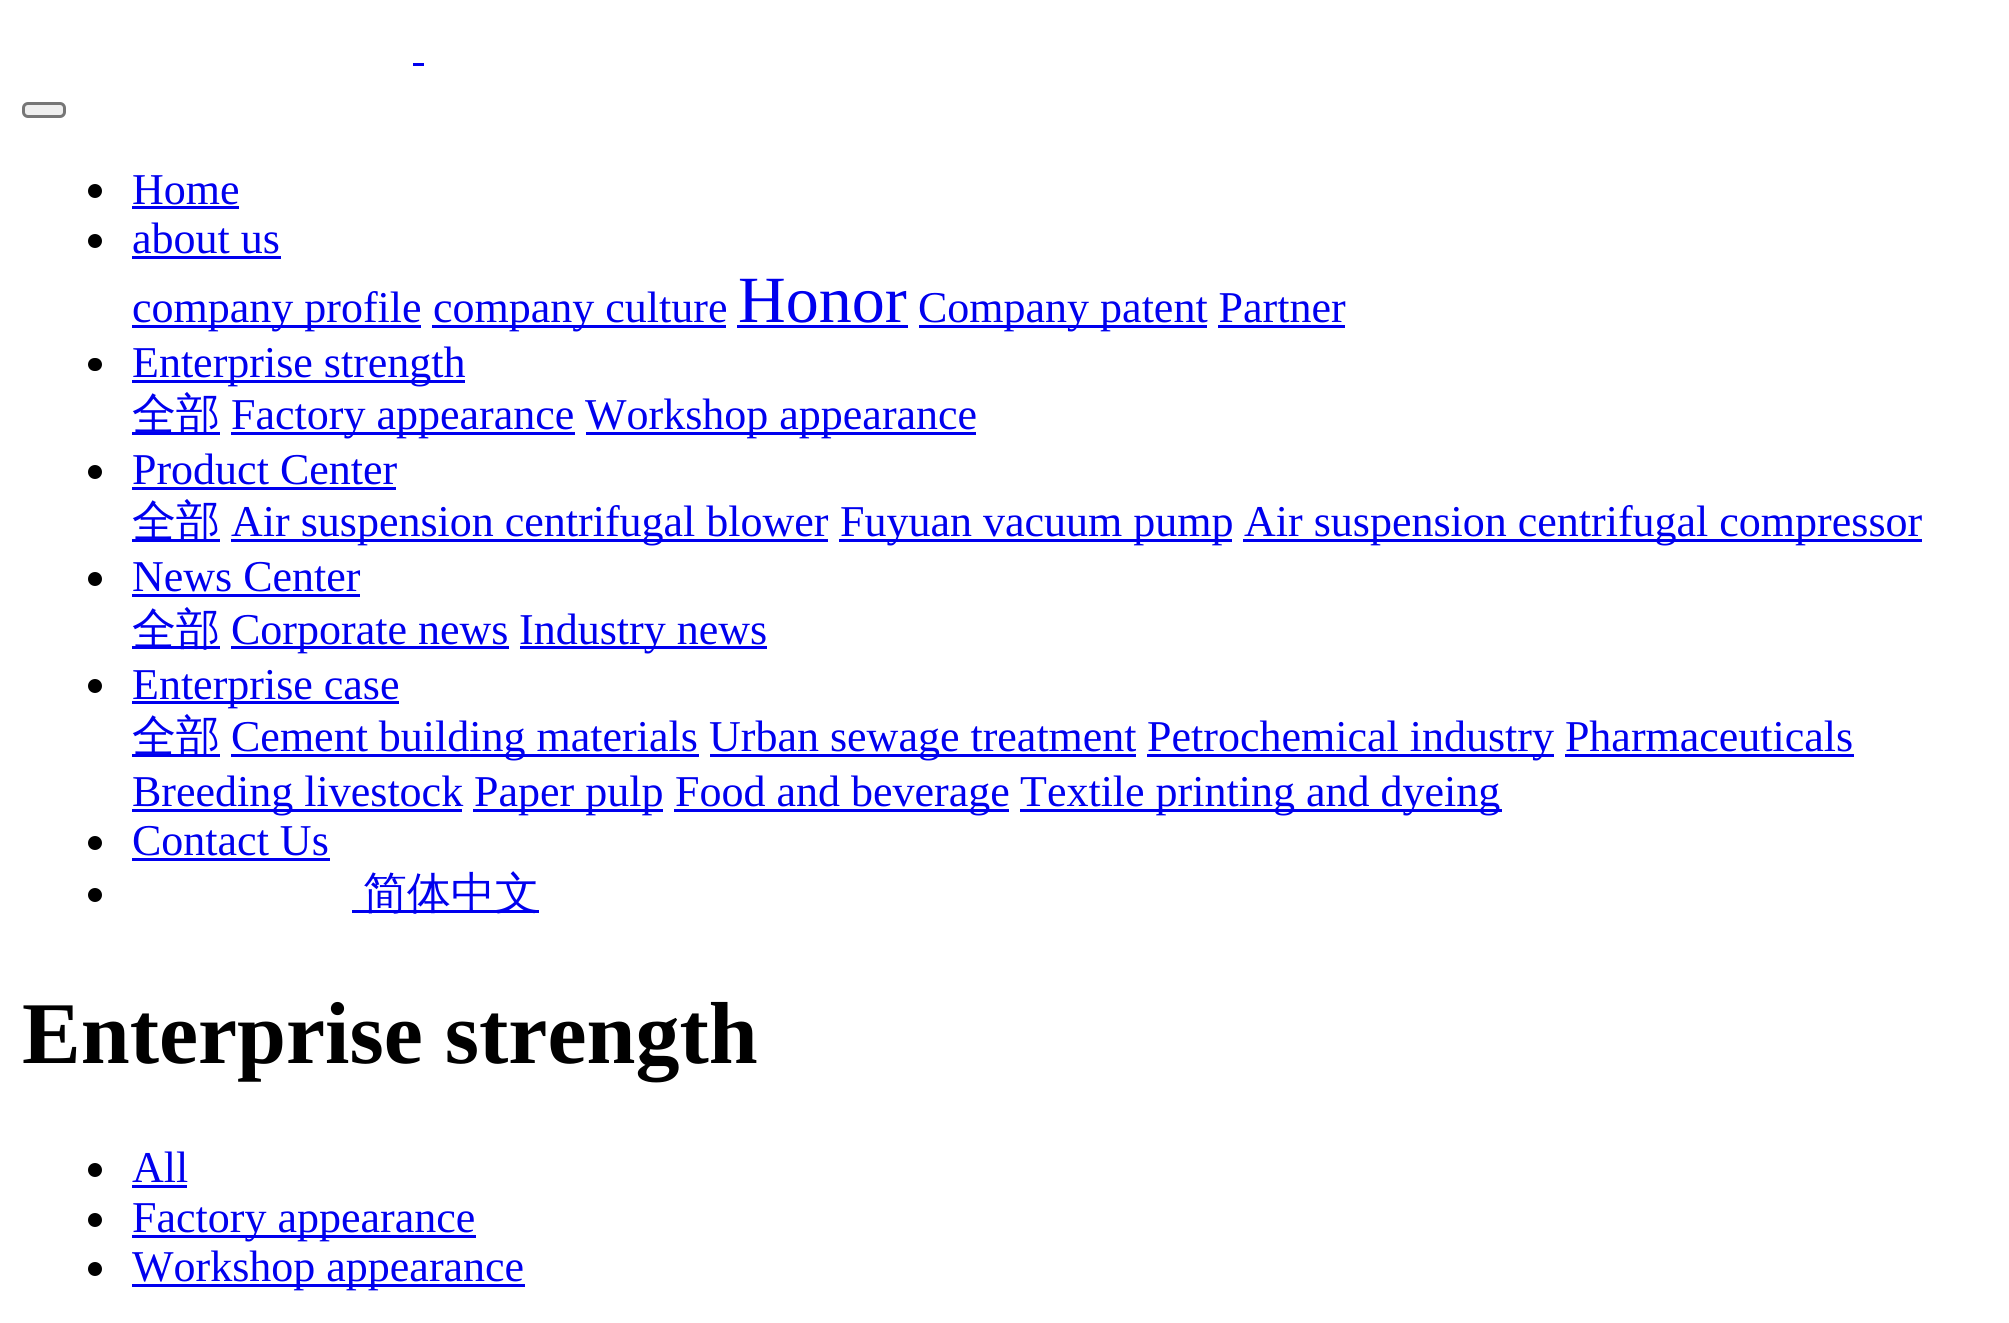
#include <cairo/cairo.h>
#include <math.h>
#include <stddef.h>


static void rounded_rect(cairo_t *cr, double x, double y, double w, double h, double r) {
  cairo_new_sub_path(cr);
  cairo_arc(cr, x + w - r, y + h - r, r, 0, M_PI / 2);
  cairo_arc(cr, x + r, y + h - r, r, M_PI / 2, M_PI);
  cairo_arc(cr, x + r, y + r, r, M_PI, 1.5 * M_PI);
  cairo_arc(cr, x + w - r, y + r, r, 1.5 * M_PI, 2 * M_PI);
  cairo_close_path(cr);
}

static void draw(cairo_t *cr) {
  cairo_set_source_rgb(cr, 1, 1, 1);
  cairo_paint(cr);
  cairo_set_source_rgb(cr, 0, 0, 238 / 255.0);
  cairo_rectangle(cr, 413, 63, 11, 3);
  cairo_fill(cr);
  cairo_set_source_rgb(cr, 239 / 255.0, 239 / 255.0, 239 / 255.0);
  rounded_rect(cr, 23.5, 103.5, 41, 13, 4.5);
  cairo_fill_preserve(cr);
  cairo_set_source_rgb(cr, 118 / 255.0, 118 / 255.0, 118 / 255.0);
  cairo_set_line_width(cr, 3);
  cairo_stroke(cr);
  cairo_set_source_rgb(cr, 0, 0, 0);
  cairo_arc(cr, 95, 191, 7, 0, 2 * M_PI);
  cairo_fill(cr);
  cairo_set_source_rgb(cr, 0, 0, 238 / 255.0);
  cairo_rectangle(cr, 132, 206, 107, 3);
  cairo_fill(cr);
  cairo_set_source_rgb(cr, 0, 0, 0);
  cairo_arc(cr, 95, 241, 7, 0, 2 * M_PI);
  cairo_fill(cr);
  cairo_set_source_rgb(cr, 0, 0, 238 / 255.0);
  cairo_rectangle(cr, 132, 256, 149, 3);
  cairo_fill(cr);
  cairo_rectangle(cr, 132, 325, 289, 3);
  cairo_fill(cr);
  cairo_rectangle(cr, 432, 325, 294, 3);
  cairo_fill(cr);
  cairo_rectangle(cr, 737, 325, 171, 3);
  cairo_fill(cr);
  cairo_rectangle(cr, 919, 325, 288, 3);
  cairo_fill(cr);
  cairo_rectangle(cr, 1218, 325, 127, 3);
  cairo_fill(cr);
  cairo_set_source_rgb(cr, 0, 0, 0);
  rounded_rect(cr, 88, 358, 14, 13, 6.5);
  cairo_fill(cr);
  cairo_set_source_rgb(cr, 0, 0, 238 / 255.0);
  cairo_rectangle(cr, 132, 380, 333, 3);
  cairo_fill(cr);
  cairo_rectangle(cr, 132, 432, 88, 3);
  cairo_fill(cr);
  cairo_rectangle(cr, 231, 432, 344, 3);
  cairo_fill(cr);
  cairo_rectangle(cr, 586, 432, 390, 3);
  cairo_fill(cr);
  cairo_set_source_rgb(cr, 0, 0, 0);
  cairo_arc(cr, 95, 472, 7, 0, 2 * M_PI);
  cairo_fill(cr);
  cairo_set_source_rgb(cr, 0, 0, 238 / 255.0);
  cairo_rectangle(cr, 132, 487, 264, 3);
  cairo_fill(cr);
  cairo_rectangle(cr, 132, 539, 88, 3);
  cairo_fill(cr);
  cairo_rectangle(cr, 231, 539, 597, 3);
  cairo_fill(cr);
  cairo_rectangle(cr, 839, 539, 393, 3);
  cairo_fill(cr);
  cairo_rectangle(cr, 1243, 539, 679, 3);
  cairo_fill(cr);
  cairo_set_source_rgb(cr, 0, 0, 0);
  cairo_arc(cr, 95, 579, 7, 0, 2 * M_PI);
  cairo_fill(cr);
  cairo_set_source_rgb(cr, 0, 0, 238 / 255.0);
  cairo_rectangle(cr, 132, 594, 228, 3);
  cairo_fill(cr);
  cairo_rectangle(cr, 132, 646, 88, 3);
  cairo_fill(cr);
  cairo_rectangle(cr, 231, 646, 278, 3);
  cairo_fill(cr);
  cairo_rectangle(cr, 520, 646, 247, 3);
  cairo_fill(cr);
  cairo_set_source_rgb(cr, 0, 0, 0);
  cairo_arc(cr, 95, 686, 7, 0, 2 * M_PI);
  cairo_fill(cr);
  cairo_set_source_rgb(cr, 0, 0, 238 / 255.0);
  cairo_rectangle(cr, 132, 701, 267, 3);
  cairo_fill(cr);
  cairo_rectangle(cr, 132, 754, 88, 3);
  cairo_fill(cr);
  cairo_rectangle(cr, 231, 754, 468, 3);
  cairo_fill(cr);
  cairo_rectangle(cr, 710, 754, 426, 3);
  cairo_fill(cr);
  cairo_rectangle(cr, 1147, 754, 407, 3);
  cairo_fill(cr);
  cairo_rectangle(cr, 1565, 754, 289, 3);
  cairo_fill(cr);
  cairo_rectangle(cr, 132, 809, 330, 3);
  cairo_fill(cr);
  cairo_rectangle(cr, 473, 809, 190, 3);
  cairo_fill(cr);
  cairo_rectangle(cr, 674, 809, 335, 3);
  cairo_fill(cr);
  cairo_rectangle(cr, 1020, 809, 482, 3);
  cairo_fill(cr);
  cairo_set_source_rgb(cr, 0, 0, 0);
  cairo_arc(cr, 95, 843, 7, 0, 2 * M_PI);
  cairo_fill(cr);
  cairo_set_source_rgb(cr, 0, 0, 238 / 255.0);
  cairo_rectangle(cr, 132, 858, 198, 3);
  cairo_fill(cr);
  cairo_set_source_rgb(cr, 0, 0, 0);
  cairo_arc(cr, 95, 895, 7, 0, 2 * M_PI);
  cairo_fill(cr);
  cairo_set_source_rgb(cr, 0, 0, 238 / 255.0);
  cairo_rectangle(cr, 352, 910, 187, 3);
  cairo_fill(cr);
  cairo_set_source_rgb(cr, 0, 0, 0);
  cairo_arc(cr, 95, 1170, 7, 0, 2 * M_PI);
  cairo_fill(cr);
  cairo_set_source_rgb(cr, 0, 0, 238 / 255.0);
  cairo_rectangle(cr, 132, 1185, 55, 3);
  cairo_fill(cr);
  cairo_set_source_rgb(cr, 0, 0, 0);
  cairo_arc(cr, 95, 1220, 7, 0, 2 * M_PI);
  cairo_fill(cr);
  cairo_set_source_rgb(cr, 0, 0, 238 / 255.0);
  cairo_rectangle(cr, 132, 1235, 344, 3);
  cairo_fill(cr);
  cairo_set_source_rgb(cr, 0, 0, 0);
  cairo_arc(cr, 95, 1269, 7, 0, 2 * M_PI);
  cairo_fill(cr);
  cairo_set_source_rgb(cr, 0, 0, 238 / 255.0);
  cairo_rectangle(cr, 132, 1284, 393, 3);
  cairo_fill(cr);
  cairo_select_font_face(cr, "Liberation Serif", CAIRO_FONT_SLANT_NORMAL, CAIRO_FONT_WEIGHT_NORMAL);
  cairo_set_font_size(cr, 44);
  cairo_move_to(cr, 132, 204);
  cairo_show_text(cr, "Home");
  cairo_move_to(cr, 132, 253);
  cairo_show_text(cr, "about us");
  cairo_move_to(cr, 132, 322);
  cairo_show_text(cr, "company profile");
  cairo_move_to(cr, 433, 322);
  cairo_show_text(cr, "company culture");
  cairo_set_font_size(cr, 66);
  cairo_move_to(cr, 738, 322);
  cairo_show_text(cr, "Honor");
  cairo_set_font_size(cr, 44);
  cairo_move_to(cr, 918, 322);
  cairo_show_text(cr, "Company patent Partner");
  cairo_move_to(cr, 132, 377);
  cairo_show_text(cr, "Enterprise strength");
  cairo_select_font_face(cr, "WenQuanYi Zen Hei Medium", CAIRO_FONT_SLANT_NORMAL, CAIRO_FONT_WEIGHT_NORMAL);
  cairo_move_to(cr, 132, 429);
  cairo_show_text(cr, "全部");
  cairo_select_font_face(cr, "Liberation Serif", CAIRO_FONT_SLANT_NORMAL, CAIRO_FONT_WEIGHT_NORMAL);
  cairo_move_to(cr, 231, 429);
  cairo_show_text(cr, "Factory appearance");
  cairo_move_to(cr, 585, 429);
  cairo_show_text(cr, "Workshop appearance");
  cairo_move_to(cr, 132, 484);
  cairo_show_text(cr, "Product Center");
  cairo_select_font_face(cr, "WenQuanYi Zen Hei Medium", CAIRO_FONT_SLANT_NORMAL, CAIRO_FONT_WEIGHT_NORMAL);
  cairo_move_to(cr, 132, 536);
  cairo_show_text(cr, "全部");
  cairo_select_font_face(cr, "Liberation Serif", CAIRO_FONT_SLANT_NORMAL, CAIRO_FONT_WEIGHT_NORMAL);
  cairo_move_to(cr, 231, 536);
  cairo_show_text(cr, "Air suspension centrifugal blower");
  cairo_move_to(cr, 840, 536);
  cairo_show_text(cr, "Fuyuan vacuum pump");
  cairo_move_to(cr, 1244, 536);
  cairo_show_text(cr, "Air suspension centrifugal compressor");
  cairo_move_to(cr, 132, 591);
  cairo_show_text(cr, "News Center");
  cairo_select_font_face(cr, "WenQuanYi Zen Hei Medium", CAIRO_FONT_SLANT_NORMAL, CAIRO_FONT_WEIGHT_NORMAL);
  cairo_move_to(cr, 132, 644);
  cairo_show_text(cr, "全部");
  cairo_select_font_face(cr, "Liberation Serif", CAIRO_FONT_SLANT_NORMAL, CAIRO_FONT_WEIGHT_NORMAL);
  cairo_move_to(cr, 231, 644);
  cairo_show_text(cr, "Corporate news");
  cairo_move_to(cr, 519, 644);
  cairo_show_text(cr, "Industry news");
  cairo_move_to(cr, 132, 699);
  cairo_show_text(cr, "Enterprise case");
  cairo_select_font_face(cr, "WenQuanYi Zen Hei Medium", CAIRO_FONT_SLANT_NORMAL, CAIRO_FONT_WEIGHT_NORMAL);
  cairo_move_to(cr, 132, 751);
  cairo_show_text(cr, "全部");
  cairo_select_font_face(cr, "Liberation Serif", CAIRO_FONT_SLANT_NORMAL, CAIRO_FONT_WEIGHT_NORMAL);
  cairo_move_to(cr, 231, 751);
  cairo_show_text(cr, "Cement building materials");
  cairo_move_to(cr, 709, 751);
  cairo_show_text(cr, "Urban sewage treatment");
  cairo_move_to(cr, 1147, 751);
  cairo_show_text(cr, "Petrochemical industry Pharmaceuticals");
  cairo_move_to(cr, 132, 806);
  cairo_show_text(cr, "Breeding livestock");
  cairo_move_to(cr, 474, 806);
  cairo_show_text(cr, "Paper pulp");
  cairo_move_to(cr, 675, 806);
  cairo_show_text(cr, "Food and beverage");
  cairo_move_to(cr, 1020, 806);
  cairo_show_text(cr, "Textile printing and dyeing");
  cairo_move_to(cr, 132, 855);
  cairo_show_text(cr, "Contact Us");
  cairo_select_font_face(cr, "WenQuanYi Zen Hei Medium", CAIRO_FONT_SLANT_NORMAL, CAIRO_FONT_WEIGHT_NORMAL);
  cairo_move_to(cr, 363, 908);
  cairo_show_text(cr, "简体中文");
  cairo_select_font_face(cr, "Liberation Serif", CAIRO_FONT_SLANT_NORMAL, CAIRO_FONT_WEIGHT_BOLD);
  cairo_set_font_size(cr, 88);
  cairo_set_source_rgb(cr, 0, 0, 0);
  cairo_move_to(cr, 22, 1063);
  cairo_show_text(cr, "Enterprise strength");
  cairo_select_font_face(cr, "Liberation Serif", CAIRO_FONT_SLANT_NORMAL, CAIRO_FONT_WEIGHT_NORMAL);
  cairo_set_font_size(cr, 44);
  cairo_set_source_rgb(cr, 0, 0, 238 / 255.0);
  cairo_move_to(cr, 132, 1182);
  cairo_show_text(cr, "All");
  cairo_move_to(cr, 132, 1232);
  cairo_show_text(cr, "Factory appearance");
  cairo_move_to(cr, 132, 1281);
  cairo_show_text(cr, "Workshop appearance");
}

int main(void) {
  cairo_surface_t *surface = cairo_image_surface_create(CAIRO_FORMAT_RGB24, 2009, 1323);
  cairo_t *cr = cairo_create(surface);
  cairo_font_options_t *options = cairo_font_options_create();
  cairo_font_options_set_hint_metrics(options, CAIRO_HINT_METRICS_OFF);
  cairo_font_options_set_hint_style(options, CAIRO_HINT_STYLE_NONE);
  cairo_set_font_options(cr, options);
  cairo_set_miter_limit(cr, 4);
  draw(cr);
  cairo_surface_write_to_png(surface, "out.png");
  cairo_font_options_destroy(options);
  cairo_destroy(cr);
  cairo_surface_destroy(surface);
  return 0;
}
